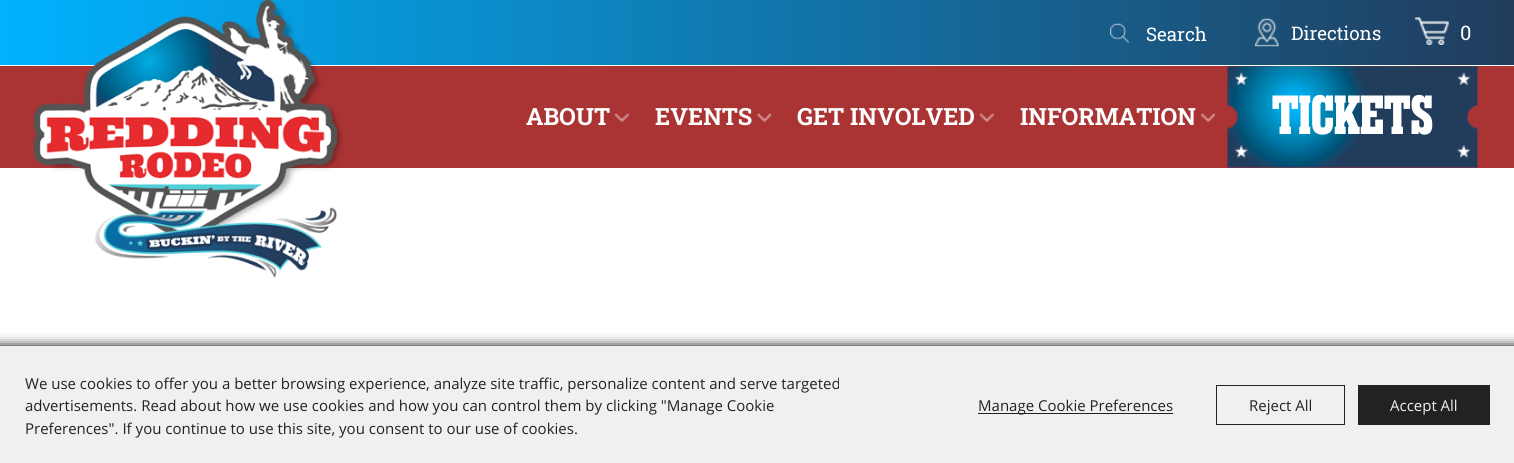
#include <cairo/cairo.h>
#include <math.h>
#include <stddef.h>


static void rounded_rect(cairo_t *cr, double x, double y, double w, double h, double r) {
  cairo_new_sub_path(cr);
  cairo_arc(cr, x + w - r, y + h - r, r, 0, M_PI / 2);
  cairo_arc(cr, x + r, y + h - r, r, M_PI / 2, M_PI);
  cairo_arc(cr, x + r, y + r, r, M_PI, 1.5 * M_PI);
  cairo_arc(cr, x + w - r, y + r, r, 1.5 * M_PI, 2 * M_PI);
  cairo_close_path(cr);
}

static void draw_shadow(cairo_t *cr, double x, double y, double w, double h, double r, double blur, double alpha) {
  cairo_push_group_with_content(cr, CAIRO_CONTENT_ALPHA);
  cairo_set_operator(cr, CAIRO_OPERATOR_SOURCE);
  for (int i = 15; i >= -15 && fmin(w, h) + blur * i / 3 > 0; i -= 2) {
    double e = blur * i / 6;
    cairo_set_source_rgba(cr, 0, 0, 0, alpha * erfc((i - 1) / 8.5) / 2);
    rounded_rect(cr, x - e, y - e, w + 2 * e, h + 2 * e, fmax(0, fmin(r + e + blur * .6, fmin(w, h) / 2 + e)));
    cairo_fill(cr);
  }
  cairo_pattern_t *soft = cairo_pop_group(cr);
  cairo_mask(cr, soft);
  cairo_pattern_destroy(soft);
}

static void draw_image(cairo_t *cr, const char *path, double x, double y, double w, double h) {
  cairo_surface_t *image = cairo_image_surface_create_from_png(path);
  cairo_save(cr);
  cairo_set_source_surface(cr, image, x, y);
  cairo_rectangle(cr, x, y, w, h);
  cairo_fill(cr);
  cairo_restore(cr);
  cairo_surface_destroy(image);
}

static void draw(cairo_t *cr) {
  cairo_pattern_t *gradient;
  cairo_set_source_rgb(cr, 1, 1, 1);
  cairo_paint(cr);
  cairo_set_source_rgb(cr, 170 / 255.0, 51 / 255.0, 52 / 255.0);
  cairo_rectangle(cr, 0, 66, 1514, 102);
  cairo_fill(cr);
  gradient = cairo_pattern_create_linear(0, 33, 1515, 32);
  cairo_pattern_add_color_stop_rgba(gradient, 0, 0, 179 / 255.0, 1, 1);
  cairo_pattern_add_color_stop_rgba(gradient, 1, 33 / 255.0, 60 / 255.0, 92 / 255.0, 1);
  cairo_set_source(cr, gradient);
  cairo_pattern_destroy(gradient);
  cairo_rectangle(cr, 0, 0, 1514, 65);
  cairo_fill(cr);
  draw_image(cr, "images/1.png", 33, 0, 311, 278);
  draw_image(cr, "images/2.png", 1110, 23, 19, 20);
  draw_image(cr, "images/3.png", 1255, 18, 24, 29);
  draw_image(cr, "images/4.png", 1415, 17, 34, 28);
  draw_image(cr, "images/5.png", 615, 113, 14, 10);
  draw_image(cr, "images/6.png", 757, 113, 15, 10);
  draw_image(cr, "images/7.png", 980, 113, 14, 10);
  draw_image(cr, "images/8.png", 1201, 113, 14, 10);
  draw_image(cr, "images/9.png", 1227, 66, 251, 102);
  cairo_set_source_rgb(cr, 0, 0, 0);
  draw_shadow(cr, -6, 346, 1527, 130, 0, 6, 1);
  cairo_set_source_rgb(cr, 240 / 255.0, 240 / 255.0, 240 / 255.0);
  cairo_rectangle(cr, 0, 346, 1514, 117);
  cairo_fill(cr);
  cairo_set_source_rgb(cr, 34 / 255.0, 34 / 255.0, 34 / 255.0);
  cairo_rectangle(cr, 978, 413, 195, 1);
  cairo_fill(cr);
  cairo_rectangle(cr, 1216.5, 385.5, 128, 39);
  cairo_set_line_width(cr, 1);
  cairo_stroke(cr);
  cairo_rectangle(cr, 1358, 385, 132, 40);
  cairo_fill(cr);
  cairo_select_font_face(cr, "Roboto Slab", CAIRO_FONT_SLANT_NORMAL, CAIRO_FONT_WEIGHT_NORMAL);
  cairo_set_font_size(cr, 18.75);
  cairo_set_source_rgb(cr, 1, 1, 1);
  cairo_move_to(cr, 1146, 41);
  cairo_show_text(cr, "Search");
  cairo_move_to(cr, 1291, 40);
  cairo_show_text(cr, "Directions");
  cairo_set_font_size(cr, 20);
  cairo_move_to(cr, 1460, 40);
  cairo_show_text(cr, "0");
  cairo_select_font_face(cr, "Roboto Slab", CAIRO_FONT_SLANT_NORMAL, CAIRO_FONT_WEIGHT_BOLD);
  cairo_set_font_size(cr, 23.75);
  cairo_move_to(cr, 526, 125);
  cairo_show_text(cr, "ABOUT");
  cairo_move_to(cr, 655, 125);
  cairo_show_text(cr, "EVENTS");
  cairo_move_to(cr, 797, 125);
  cairo_show_text(cr, "GET INVOLVED");
  cairo_move_to(cr, 1020, 125);
  cairo_show_text(cr, "INFORMATION");
  cairo_select_font_face(cr, "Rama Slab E", CAIRO_FONT_SLANT_NORMAL, CAIRO_FONT_WEIGHT_BOLD);
  cairo_set_font_size(cr, 55);
  cairo_move_to(cr, 1272, 134);
  cairo_show_text(cr, "TICKETS");
  cairo_select_font_face(cr, "Open Sans", CAIRO_FONT_SLANT_NORMAL, CAIRO_FONT_WEIGHT_NORMAL);
  cairo_set_font_size(cr, 15);
  cairo_set_source_rgb(cr, 34 / 255.0, 34 / 255.0, 34 / 255.0);
  cairo_move_to(cr, 25, 389);
  cairo_show_text(cr, "We use cookies to offer you a better browsing experience, analyze site traffic, personalize content and serve targeted");
  cairo_move_to(cr, 25, 411);
  cairo_show_text(cr, "advertisements. Read about how we use cookies and how you can control them by clicking \"Manage Cookie");
  cairo_move_to(cr, 25, 434);
  cairo_show_text(cr, "Preferences\". If you continue to use this site, you consent to our use of cookies.");
  cairo_move_to(cr, 978, 411);
  cairo_show_text(cr, "Manage Cookie Preferences");
  cairo_move_to(cr, 1249, 411);
  cairo_show_text(cr, "Reject All");
  cairo_set_source_rgb(cr, 240 / 255.0, 240 / 255.0, 240 / 255.0);
  cairo_move_to(cr, 1390, 411);
  cairo_show_text(cr, "Accept All");
}

int main(void) {
  cairo_surface_t *surface = cairo_image_surface_create(CAIRO_FORMAT_RGB24, 1514, 463);
  cairo_t *cr = cairo_create(surface);
  cairo_font_options_t *options = cairo_font_options_create();
  cairo_font_options_set_hint_metrics(options, CAIRO_HINT_METRICS_OFF);
  cairo_font_options_set_hint_style(options, CAIRO_HINT_STYLE_NONE);
  cairo_set_font_options(cr, options);
  cairo_set_miter_limit(cr, 4);
  draw(cr);
  cairo_surface_write_to_png(surface, "out.png");
  cairo_font_options_destroy(options);
  cairo_destroy(cr);
  cairo_surface_destroy(surface);
  return 0;
}
